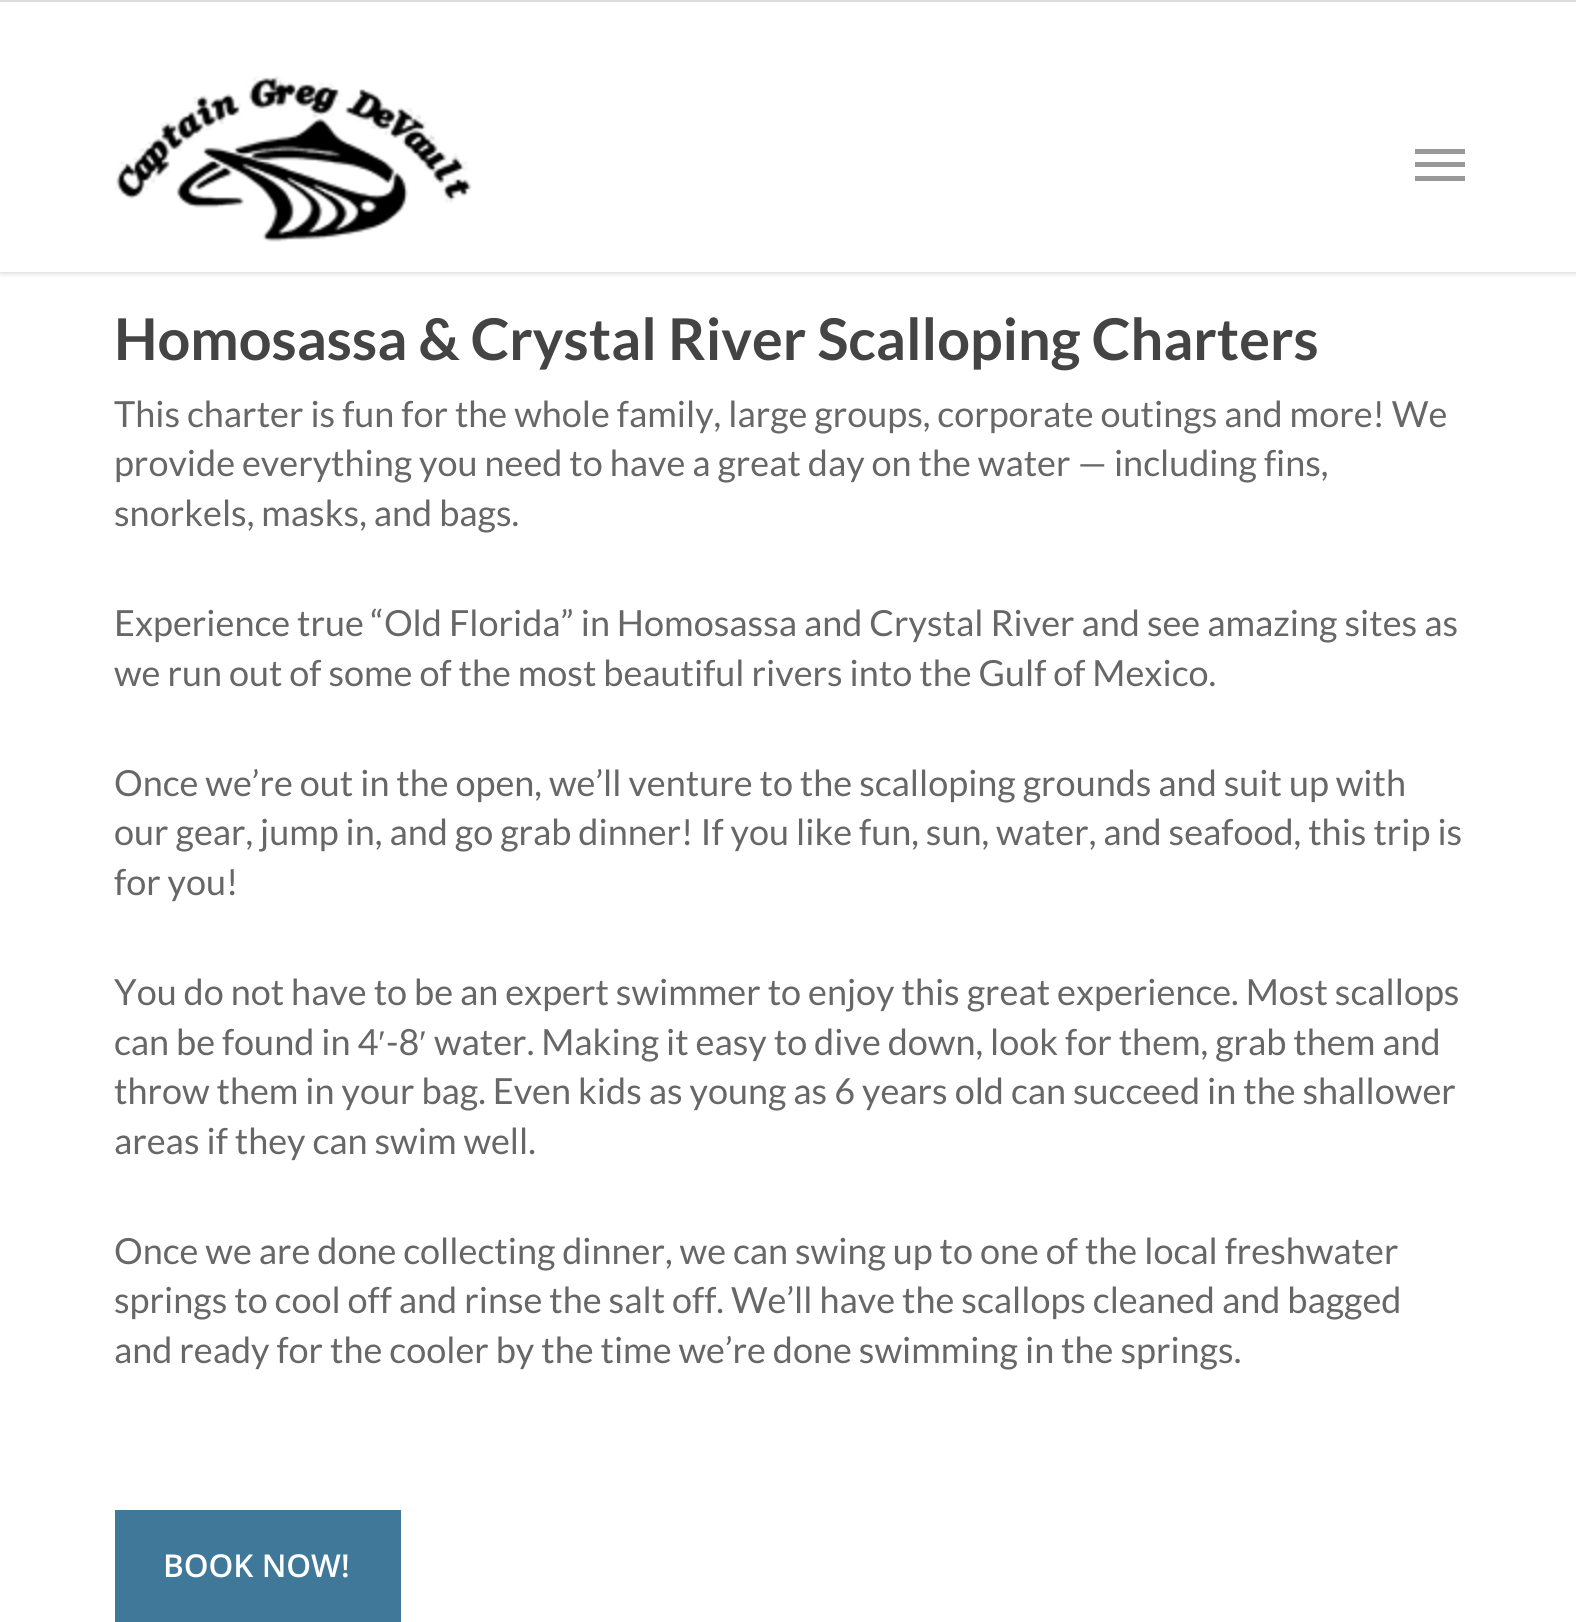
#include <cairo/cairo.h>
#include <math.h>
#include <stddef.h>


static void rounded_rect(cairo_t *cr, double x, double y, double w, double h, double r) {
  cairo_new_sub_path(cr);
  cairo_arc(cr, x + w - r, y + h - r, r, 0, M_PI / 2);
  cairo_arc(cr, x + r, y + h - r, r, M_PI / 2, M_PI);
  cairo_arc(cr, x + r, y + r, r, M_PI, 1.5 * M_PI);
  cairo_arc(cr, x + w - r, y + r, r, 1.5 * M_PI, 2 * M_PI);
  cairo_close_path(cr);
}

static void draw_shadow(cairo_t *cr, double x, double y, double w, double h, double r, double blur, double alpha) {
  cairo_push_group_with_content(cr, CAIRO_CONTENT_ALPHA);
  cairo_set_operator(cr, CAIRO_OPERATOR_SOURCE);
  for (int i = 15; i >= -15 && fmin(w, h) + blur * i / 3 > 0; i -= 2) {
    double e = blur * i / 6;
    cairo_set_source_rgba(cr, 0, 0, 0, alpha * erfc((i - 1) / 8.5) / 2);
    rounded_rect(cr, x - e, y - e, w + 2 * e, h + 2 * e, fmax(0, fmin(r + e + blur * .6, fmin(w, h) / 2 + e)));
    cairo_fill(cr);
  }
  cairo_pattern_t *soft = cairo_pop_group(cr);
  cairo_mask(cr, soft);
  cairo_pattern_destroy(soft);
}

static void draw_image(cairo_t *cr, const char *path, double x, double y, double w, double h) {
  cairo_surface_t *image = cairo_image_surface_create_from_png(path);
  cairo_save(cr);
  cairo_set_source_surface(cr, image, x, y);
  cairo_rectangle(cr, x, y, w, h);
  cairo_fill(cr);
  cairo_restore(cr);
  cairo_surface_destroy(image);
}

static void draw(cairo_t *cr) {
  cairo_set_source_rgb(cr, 1, 1, 1);
  cairo_paint(cr);
  cairo_save(cr);
  cairo_rectangle(cr, 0, 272, 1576, 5);
  cairo_clip(cr);
  cairo_set_source_rgb(cr, 0, 0, 0);
  draw_shadow(cr, 0, -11, 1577, 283, 0, 3.5, 0.22);
  cairo_restore(cr);
  cairo_set_source_rgb(cr, 221 / 255.0, 221 / 255.0, 221 / 255.0);
  cairo_rectangle(cr, 0, 0, 1576, 2);
  cairo_fill(cr);
  draw_image(cr, "images/1.png", 115, 76, 357, 166);
  cairo_set_source_rgb(cr, 153 / 255.0, 153 / 255.0, 153 / 255.0);
  cairo_rectangle(cr, 1415, 149, 50, 5);
  cairo_fill(cr);
  cairo_rectangle(cr, 1415, 176, 50, 5);
  cairo_fill(cr);
  cairo_rectangle(cr, 1415, 162, 50, 5);
  cairo_fill(cr);
  cairo_set_source_rgb(cr, 64 / 255.0, 120 / 255.0, 153 / 255.0);
  cairo_rectangle(cr, 115, 1510, 286, 112);
  cairo_fill(cr);
  cairo_select_font_face(cr, "Lato", CAIRO_FONT_SLANT_NORMAL, CAIRO_FONT_WEIGHT_BOLD);
  cairo_set_font_size(cr, 57.6);
  cairo_set_source_rgb(cr, 68 / 255.0, 68 / 255.0, 68 / 255.0);
  cairo_move_to(cr, 114, 360);
  cairo_show_text(cr, "Homosassa & Crystal River Scalloping Charters");
  cairo_select_font_face(cr, "Lato", CAIRO_FONT_SLANT_NORMAL, CAIRO_FONT_WEIGHT_NORMAL);
  cairo_set_font_size(cr, 36);
  cairo_set_source_rgb(cr, 103 / 255.0, 103 / 255.0, 103 / 255.0);
  cairo_move_to(cr, 114, 427);
  cairo_show_text(cr, "This charter is fun for the whole family, large groups, corporate outings and more! We");
  cairo_move_to(cr, 114, 476);
  cairo_show_text(cr, "provide everything you need to have a great day on the water — including fins,");
  cairo_move_to(cr, 114, 526);
  cairo_show_text(cr, "snorkels, masks, and bags.");
  cairo_move_to(cr, 114, 636);
  cairo_show_text(cr, "Experience true “Old Florida” in Homosassa and Crystal River and see amazing sites as");
  cairo_move_to(cr, 114, 686);
  cairo_show_text(cr, "we run out of some of the most beautiful rivers into the Gulf of Mexico.");
  cairo_move_to(cr, 114, 796);
  cairo_show_text(cr, "Once we’re out in the open, we’ll venture to the scalloping grounds and suit up with");
  cairo_move_to(cr, 114, 845);
  cairo_show_text(cr, "our gear, jump in, and go grab dinner! If you like fun, sun, water, and seafood, this trip is");
  cairo_move_to(cr, 114, 895);
  cairo_show_text(cr, "for you!");
  cairo_move_to(cr, 114, 1005);
  cairo_show_text(cr, "You do not have to be an expert swimmer to enjoy this great experience. Most scallops");
  cairo_move_to(cr, 114, 1055);
  cairo_show_text(cr, "can be found in 4");
  cairo_select_font_face(cr, "Liberation Serif", CAIRO_FONT_SLANT_NORMAL, CAIRO_FONT_WEIGHT_NORMAL);
  cairo_move_to(cr, 378, 1055);
  cairo_show_text(cr, "′");
  cairo_select_font_face(cr, "Lato", CAIRO_FONT_SLANT_NORMAL, CAIRO_FONT_WEIGHT_NORMAL);
  cairo_move_to(cr, 386, 1055);
  cairo_show_text(cr, "-8");
  cairo_select_font_face(cr, "Liberation Serif", CAIRO_FONT_SLANT_NORMAL, CAIRO_FONT_WEIGHT_NORMAL);
  cairo_move_to(cr, 419, 1055);
  cairo_show_text(cr, "′");
  cairo_select_font_face(cr, "Lato", CAIRO_FONT_SLANT_NORMAL, CAIRO_FONT_WEIGHT_NORMAL);
  cairo_move_to(cr, 434, 1055);
  cairo_show_text(cr, "water. Making it easy to dive down, look for them, grab them and");
  cairo_move_to(cr, 114, 1104);
  cairo_show_text(cr, "throw them in your bag. Even kids as young as 6 years old can succeed in the shallower");
  cairo_move_to(cr, 114, 1154);
  cairo_show_text(cr, "areas if they can swim well.");
  cairo_move_to(cr, 114, 1264);
  cairo_show_text(cr, "Once we are done collecting dinner, we can swing up to one of the local freshwater");
  cairo_move_to(cr, 114, 1313);
  cairo_show_text(cr, "springs to cool off and rinse the salt off. We’ll have the scallops cleaned and bagged");
  cairo_move_to(cr, 114, 1363);
  cairo_show_text(cr, "and ready for the cooler by the time we’re done swimming in the springs.");
  cairo_select_font_face(cr, "Open Sans SemiBold", CAIRO_FONT_SLANT_NORMAL, CAIRO_FONT_WEIGHT_NORMAL);
  cairo_set_font_size(cr, 31.5);
  cairo_set_source_rgb(cr, 1, 1, 1);
  cairo_move_to(cr, 163, 1577);
  cairo_show_text(cr, "BOOK NOW!");
}

int main(void) {
  cairo_surface_t *surface = cairo_image_surface_create(CAIRO_FORMAT_RGB24, 1576, 1622);
  cairo_t *cr = cairo_create(surface);
  cairo_font_options_t *options = cairo_font_options_create();
  cairo_font_options_set_hint_metrics(options, CAIRO_HINT_METRICS_OFF);
  cairo_font_options_set_hint_style(options, CAIRO_HINT_STYLE_NONE);
  cairo_set_font_options(cr, options);
  cairo_set_miter_limit(cr, 4);
  draw(cr);
  cairo_surface_write_to_png(surface, "out.png");
  cairo_font_options_destroy(options);
  cairo_destroy(cr);
  cairo_surface_destroy(surface);
  return 0;
}
